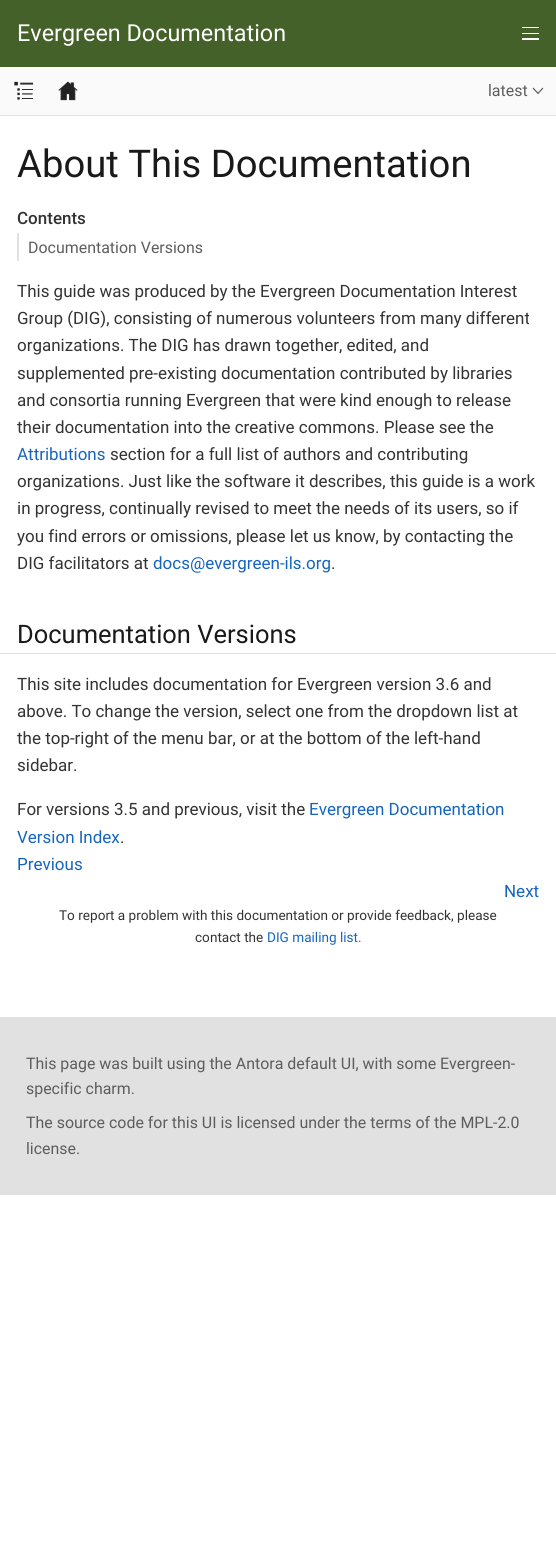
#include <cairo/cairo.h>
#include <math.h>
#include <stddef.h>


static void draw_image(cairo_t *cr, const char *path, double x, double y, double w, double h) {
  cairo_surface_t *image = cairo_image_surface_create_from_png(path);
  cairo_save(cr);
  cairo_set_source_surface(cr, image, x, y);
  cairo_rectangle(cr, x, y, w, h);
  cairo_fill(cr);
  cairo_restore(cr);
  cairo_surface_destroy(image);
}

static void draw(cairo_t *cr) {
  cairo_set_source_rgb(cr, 1, 1, 1);
  cairo_paint(cr);
  cairo_set_source_rgb(cr, 68 / 255.0, 97 / 255.0, 41 / 255.0);
  cairo_rectangle(cr, 0, 0, 556, 67);
  cairo_fill(cr);
  cairo_set_source_rgb(cr, 1, 1, 1);
  cairo_rectangle(cr, 522, 27, 17, 1);
  cairo_fill(cr);
  cairo_rectangle(cr, 522, 33, 17, 1);
  cairo_fill(cr);
  cairo_rectangle(cr, 522, 38, 17, 2);
  cairo_fill(cr);
  cairo_set_source_rgb(cr, 225 / 255.0, 225 / 255.0, 225 / 255.0);
  cairo_rectangle(cr, 0, 115, 556, 1);
  cairo_fill(cr);
  cairo_set_source_rgb(cr, 250 / 255.0, 250 / 255.0, 250 / 255.0);
  cairo_rectangle(cr, 0, 67, 556, 48);
  cairo_fill(cr);
  draw_image(cr, "images/1.png", 14, 81, 20, 19);
  draw_image(cr, "images/2.png", 58, 81, 20, 20);
  draw_image(cr, "images/3.png", 532, 87, 12, 8);
  cairo_set_source_rgb(cr, 225 / 255.0, 225 / 255.0, 225 / 255.0);
  cairo_rectangle(cr, 17, 233, 2, 28);
  cairo_fill(cr);
  cairo_rectangle(cr, 0, 653, 556, 1);
  cairo_fill(cr);
  cairo_rectangle(cr, 0, 1017, 556, 178);
  cairo_fill(cr);
  cairo_select_font_face(cr, "Roboto", CAIRO_FONT_SLANT_NORMAL, CAIRO_FONT_WEIGHT_NORMAL);
  cairo_set_font_size(cr, 23.4);
  cairo_set_source_rgb(cr, 1, 1, 1);
  cairo_move_to(cr, 17, 41);
  cairo_show_text(cr, "Evergreen Documentation");
  cairo_set_font_size(cr, 15.95);
  cairo_set_source_rgb(cr, 93 / 255.0, 93 / 255.0, 93 / 255.0);
  cairo_move_to(cr, 488, 96);
  cairo_show_text(cr, "latest");
  cairo_set_font_size(cr, 38.25);
  cairo_set_source_rgb(cr, 25 / 255.0, 25 / 255.0, 25 / 255.0);
  cairo_move_to(cr, 17, 177);
  cairo_show_text(cr, "About This Documentation");
  cairo_select_font_face(cr, "Roboto Medium", CAIRO_FONT_SLANT_NORMAL, CAIRO_FONT_WEIGHT_NORMAL);
  cairo_set_font_size(cr, 17);
  cairo_set_source_rgb(cr, 51 / 255.0, 51 / 255.0, 51 / 255.0);
  cairo_move_to(cr, 17, 224);
  cairo_show_text(cr, "Contents");
  cairo_select_font_face(cr, "Roboto", CAIRO_FONT_SLANT_NORMAL, CAIRO_FONT_WEIGHT_NORMAL);
  cairo_set_font_size(cr, 15.95);
  cairo_set_source_rgb(cr, 93 / 255.0, 93 / 255.0, 93 / 255.0);
  cairo_move_to(cr, 28, 253);
  cairo_show_text(cr, "Documentation Versions");
  cairo_set_font_size(cr, 17);
  cairo_set_source_rgb(cr, 51 / 255.0, 51 / 255.0, 51 / 255.0);
  cairo_move_to(cr, 17, 297);
  cairo_show_text(cr, "This guide was produced by the Evergreen Documentation Interest");
  cairo_move_to(cr, 17, 324);
  cairo_show_text(cr, "Group (DIG), consisting of numerous volunteers from many different");
  cairo_move_to(cr, 17, 351);
  cairo_show_text(cr, "organizations. The DIG has drawn together, edited, and");
  cairo_move_to(cr, 17, 379);
  cairo_show_text(cr, "supplemented pre-existing documentation contributed by libraries");
  cairo_move_to(cr, 17, 406);
  cairo_show_text(cr, "and consortia running Evergreen that were kind enough to release");
  cairo_move_to(cr, 17, 433);
  cairo_show_text(cr, "their documentation into the creative commons. Please see the");
  cairo_set_source_rgb(cr, 21 / 255.0, 101 / 255.0, 192 / 255.0);
  cairo_move_to(cr, 17, 460);
  cairo_show_text(cr, "Attributions");
  cairo_set_source_rgb(cr, 51 / 255.0, 51 / 255.0, 51 / 255.0);
  cairo_move_to(cr, 110, 460);
  cairo_show_text(cr, "section for a full list of authors and contributing");
  cairo_move_to(cr, 17, 487);
  cairo_show_text(cr, "organizations. Just like the software it describes, this guide is a work");
  cairo_move_to(cr, 17, 514);
  cairo_show_text(cr, "in progress, continually revised to meet the needs of its users, so if");
  cairo_move_to(cr, 17, 542);
  cairo_show_text(cr, "you find errors or omissions, please let us know, by contacting the");
  cairo_move_to(cr, 17, 569);
  cairo_show_text(cr, "DIG facilitators at");
  cairo_set_source_rgb(cr, 21 / 255.0, 101 / 255.0, 192 / 255.0);
  cairo_move_to(cr, 153, 569);
  cairo_show_text(cr, "docs@evergreen-ils.org");
  cairo_set_source_rgb(cr, 51 / 255.0, 51 / 255.0, 51 / 255.0);
  cairo_move_to(cr, 331, 569);
  cairo_show_text(cr, ".");
  cairo_set_font_size(cr, 25.5);
  cairo_set_source_rgb(cr, 25 / 255.0, 25 / 255.0, 25 / 255.0);
  cairo_move_to(cr, 17, 643);
  cairo_show_text(cr, "Documentation Versions");
  cairo_set_font_size(cr, 17);
  cairo_set_source_rgb(cr, 51 / 255.0, 51 / 255.0, 51 / 255.0);
  cairo_move_to(cr, 17, 690);
  cairo_show_text(cr, "This site includes documentation for Evergreen version 3.6 and");
  cairo_move_to(cr, 17, 717);
  cairo_show_text(cr, "above. To change the version, select one from the dropdown list at");
  cairo_move_to(cr, 17, 744);
  cairo_show_text(cr, "the top-right of the menu bar, or at the bottom of the left-hand");
  cairo_move_to(cr, 17, 771);
  cairo_show_text(cr, "sidebar.");
  cairo_move_to(cr, 17, 815);
  cairo_show_text(cr, "For versions 3.5 and previous, visit the");
  cairo_set_source_rgb(cr, 21 / 255.0, 101 / 255.0, 192 / 255.0);
  cairo_move_to(cr, 309, 815);
  cairo_show_text(cr, "Evergreen Documentation");
  cairo_move_to(cr, 17, 843);
  cairo_show_text(cr, "Version Index");
  cairo_set_source_rgb(cr, 51 / 255.0, 51 / 255.0, 51 / 255.0);
  cairo_move_to(cr, 120, 843);
  cairo_show_text(cr, ".");
  cairo_set_source_rgb(cr, 21 / 255.0, 101 / 255.0, 192 / 255.0);
  cairo_move_to(cr, 17, 870);
  cairo_show_text(cr, "Previous");
  cairo_move_to(cr, 504, 897);
  cairo_show_text(cr, "Next");
  cairo_set_font_size(cr, 13.6);
  cairo_set_source_rgb(cr, 51 / 255.0, 51 / 255.0, 51 / 255.0);
  cairo_move_to(cr, 59, 920);
  cairo_show_text(cr, "To report a problem with this documentation or provide feedback, please");
  cairo_move_to(cr, 195, 942);
  cairo_show_text(cr, "contact the");
  cairo_set_source_rgb(cr, 21 / 255.0, 101 / 255.0, 192 / 255.0);
  cairo_move_to(cr, 267, 942);
  cairo_show_text(cr, "DIG mailing list.");
  cairo_set_font_size(cr, 15.95);
  cairo_set_source_rgb(cr, 93 / 255.0, 93 / 255.0, 93 / 255.0);
  cairo_move_to(cr, 26, 1069);
  cairo_show_text(cr, "This page was built using the Antora default UI, with some Evergreen-");
  cairo_move_to(cr, 26, 1094);
  cairo_show_text(cr, "specific charm.");
  cairo_move_to(cr, 26, 1128);
  cairo_show_text(cr, "The source code for this UI is licensed under the terms of the MPL-2.0");
  cairo_move_to(cr, 26, 1154);
  cairo_show_text(cr, "license.");
}

int main(void) {
  cairo_surface_t *surface = cairo_image_surface_create(CAIRO_FORMAT_RGB24, 556, 1559);
  cairo_t *cr = cairo_create(surface);
  cairo_font_options_t *options = cairo_font_options_create();
  cairo_font_options_set_hint_metrics(options, CAIRO_HINT_METRICS_OFF);
  cairo_font_options_set_hint_style(options, CAIRO_HINT_STYLE_NONE);
  cairo_set_font_options(cr, options);
  cairo_set_miter_limit(cr, 4);
  draw(cr);
  cairo_surface_write_to_png(surface, "out.png");
  cairo_font_options_destroy(options);
  cairo_destroy(cr);
  cairo_surface_destroy(surface);
  return 0;
}
